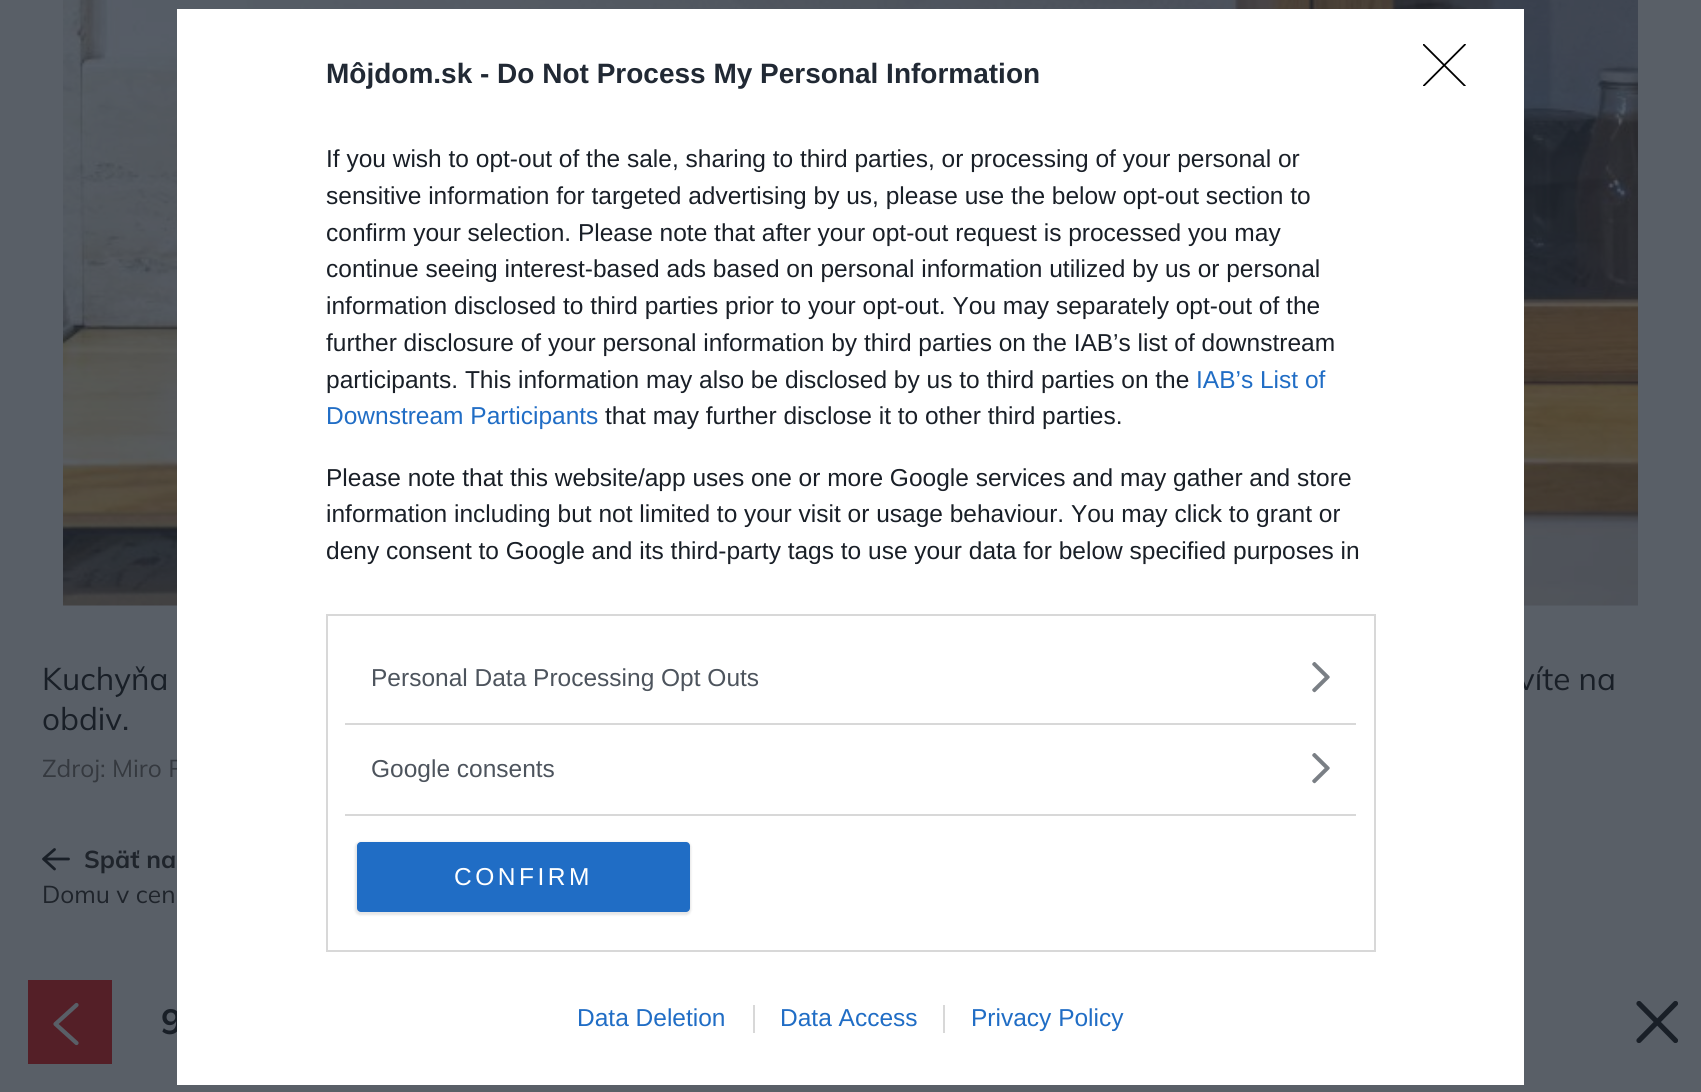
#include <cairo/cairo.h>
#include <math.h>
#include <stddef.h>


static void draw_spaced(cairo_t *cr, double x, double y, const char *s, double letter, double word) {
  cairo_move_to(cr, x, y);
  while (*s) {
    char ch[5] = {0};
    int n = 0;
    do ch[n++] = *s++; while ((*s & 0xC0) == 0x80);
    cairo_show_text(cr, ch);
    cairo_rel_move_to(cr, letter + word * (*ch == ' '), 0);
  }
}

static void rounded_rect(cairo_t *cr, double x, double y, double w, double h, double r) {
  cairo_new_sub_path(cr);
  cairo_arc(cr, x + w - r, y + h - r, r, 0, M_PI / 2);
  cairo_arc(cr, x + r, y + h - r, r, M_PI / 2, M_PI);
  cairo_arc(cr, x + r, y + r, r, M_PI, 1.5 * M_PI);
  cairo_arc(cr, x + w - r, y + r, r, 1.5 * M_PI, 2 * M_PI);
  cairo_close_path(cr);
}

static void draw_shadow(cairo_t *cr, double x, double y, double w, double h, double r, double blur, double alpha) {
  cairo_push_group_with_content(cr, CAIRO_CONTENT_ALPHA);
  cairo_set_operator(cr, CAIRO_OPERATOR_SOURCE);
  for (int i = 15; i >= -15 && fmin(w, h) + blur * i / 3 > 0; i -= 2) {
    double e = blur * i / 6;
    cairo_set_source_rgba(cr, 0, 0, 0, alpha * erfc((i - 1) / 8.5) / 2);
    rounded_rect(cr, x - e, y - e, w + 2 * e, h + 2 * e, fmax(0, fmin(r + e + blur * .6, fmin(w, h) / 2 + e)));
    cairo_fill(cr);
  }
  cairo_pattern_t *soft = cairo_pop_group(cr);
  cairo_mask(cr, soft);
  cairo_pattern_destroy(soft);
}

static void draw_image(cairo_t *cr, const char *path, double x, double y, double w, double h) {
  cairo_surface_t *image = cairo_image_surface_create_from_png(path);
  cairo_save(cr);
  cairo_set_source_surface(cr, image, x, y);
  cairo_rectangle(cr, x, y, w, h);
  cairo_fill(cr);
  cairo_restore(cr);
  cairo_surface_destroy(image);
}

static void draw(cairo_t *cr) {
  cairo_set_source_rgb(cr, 89 / 255.0, 95 / 255.0, 103 / 255.0);
  cairo_paint(cr);
  draw_image(cr, "images/2.png", 63, 0, 1575, 606);
  cairo_new_path(cr);
  cairo_move_to(cr, 54.5, 849.5);
  cairo_line_to(cr, 43.5, 859);
  cairo_line_to(cr, 54.5, 869);
  cairo_move_to(cr, 43.5, 859);
  cairo_line_to(cr, 68.5, 859);
  cairo_set_source_rgb(cr, 25 / 255.0, 31 / 255.0, 39 / 255.0);
  cairo_set_line_width(cr, 2.8);
  cairo_set_line_cap(cr, CAIRO_LINE_CAP_ROUND);
  cairo_set_line_join(cr, CAIRO_LINE_JOIN_ROUND);
  cairo_stroke(cr);
  cairo_set_source_rgb(cr, 84 / 255.0, 31 / 255.0, 39 / 255.0);
  cairo_rectangle(cr, 28, 980, 84, 84);
  cairo_fill(cr);
  cairo_new_path(cr);
  cairo_move_to(cr, 76.5, 1005);
  cairo_line_to(cr, 55.5, 1024);
  cairo_line_to(cr, 76.5, 1043);
  cairo_set_source_rgb(cr, 89 / 255.0, 95 / 255.0, 103 / 255.0);
  cairo_set_line_width(cr, 4.2);
  cairo_stroke(cr);
  cairo_save(cr);
  cairo_rectangle(cr, 1636, 1001, 42, 42);
  cairo_clip(cr);
  cairo_new_path(cr);
  cairo_move_to(cr, 1675.5, 1003.5);
  cairo_line_to(cr, 1639, 1040.5);
  cairo_move_to(cr, 1675.5, 1040.5);
  cairo_line_to(cr, 1639, 1003.5);
  cairo_set_source_rgb(cr, 25 / 255.0, 31 / 255.0, 39 / 255.0);
  cairo_set_line_width(cr, 5.2);
  cairo_stroke(cr);
  cairo_restore(cr);
  cairo_select_font_face(cr, "Mulish ExtraLight", CAIRO_FONT_SLANT_NORMAL, CAIRO_FONT_WEIGHT_NORMAL);
  cairo_set_font_size(cr, 31.5);
  cairo_set_source_rgb(cr, 25 / 255.0, 31 / 255.0, 39 / 255.0);
  cairo_move_to(cr, 42, 690);
  cairo_show_text(cr, "Kuchyňa");
  cairo_move_to(cr, 1518, 690);
  cairo_show_text(cr, "víte na");
  cairo_move_to(cr, 42, 730);
  cairo_show_text(cr, "obdiv.");
  cairo_set_font_size(cr, 24.5);
  cairo_set_source_rgb(cr, 53 / 255.0, 57 / 255.0, 63 / 255.0);
  cairo_move_to(cr, 42, 777);
  cairo_show_text(cr, "Zdroj: Miro P");
  cairo_select_font_face(cr, "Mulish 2 ExtraLight", CAIRO_FONT_SLANT_NORMAL, CAIRO_FONT_WEIGHT_NORMAL);
  cairo_set_source_rgb(cr, 31 / 255.0, 36 / 255.0, 43 / 255.0);
  cairo_move_to(cr, 84, 868);
  cairo_show_text(cr, "Späť na");
  cairo_select_font_face(cr, "Mulish ExtraLight", CAIRO_FONT_SLANT_NORMAL, CAIRO_FONT_WEIGHT_NORMAL);
  cairo_move_to(cr, 42, 903);
  cairo_show_text(cr, "Domu v cen");
  cairo_select_font_face(cr, "Mulish 2 ExtraLight", CAIRO_FONT_SLANT_NORMAL, CAIRO_FONT_WEIGHT_NORMAL);
  cairo_set_font_size(cr, 35);
  cairo_set_source_rgb(cr, 25 / 255.0, 31 / 255.0, 39 / 255.0);
  cairo_move_to(cr, 161, 1034);
  cairo_show_text(cr, "9");
  cairo_set_source_rgb(cr, 1, 1, 1);
  cairo_rectangle(cr, 177, 9, 1347, 1076);
  cairo_fill(cr);
  cairo_rectangle(cr, 327, 615, 1048, 336);
  cairo_set_source_rgb(cr, 216 / 255.0, 216 / 255.0, 216 / 255.0);
  cairo_set_line_width(cr, 2);
  cairo_set_line_cap(cr, CAIRO_LINE_CAP_BUTT);
  cairo_set_line_join(cr, CAIRO_LINE_JOIN_MITER);
  cairo_stroke(cr);
  draw_image(cr, "images/1.png", 1312, 753, 18, 31);
  draw_image(cr, "images/1.png", 1312, 662, 18, 31);
  cairo_save(cr);
  cairo_rectangle(cr, 1423, 44, 44, 42);
  cairo_clip(cr);
  cairo_new_path(cr);
  cairo_move_to(cr, 1423.5, 44.5);
  cairo_line_to(cr, 1465, 86);
  cairo_move_to(cr, 1465, 44.5);
  cairo_line_to(cr, 1423.5, 86);
  cairo_set_source_rgb(cr, 0, 0, 0);
  cairo_set_line_width(cr, 1.8);
  cairo_set_line_cap(cr, CAIRO_LINE_CAP_ROUND);
  cairo_set_line_join(cr, CAIRO_LINE_JOIN_ROUND);
  cairo_stroke(cr);
  cairo_restore(cr);
  cairo_set_source_rgb(cr, 0, 0, 0);
  draw_shadow(cr, 355, 842, 336, 73, 5, 1, 0.1);
  cairo_set_source_rgb(cr, 32 / 255.0, 109 / 255.0, 197 / 255.0);
  rounded_rect(cr, 357, 842, 333, 70, 4);
  cairo_fill(cr);
  cairo_select_font_face(cr, "Liberation Sans", CAIRO_FONT_SLANT_NORMAL, CAIRO_FONT_WEIGHT_NORMAL);
  cairo_set_font_size(cr, 24.5);
  cairo_set_source_rgb(cr, 1, 1, 1);
  draw_spaced(cr, 454, 885, "CONFIRM", 3.5, 0);
  cairo_set_source_rgb(cr, 77 / 255.0, 84 / 255.0, 93 / 255.0);
  cairo_move_to(cr, 371, 777);
  cairo_show_text(cr, "Google consents");
  cairo_set_source_rgb(cr, 216 / 255.0, 216 / 255.0, 216 / 255.0);
  cairo_rectangle(cr, 345, 814, 1011, 2);
  cairo_fill(cr);
  cairo_set_source_rgb(cr, 77 / 255.0, 84 / 255.0, 93 / 255.0);
  cairo_move_to(cr, 371, 686);
  cairo_show_text(cr, "Personal Data Processing Opt Outs");
  cairo_set_source_rgb(cr, 216 / 255.0, 216 / 255.0, 216 / 255.0);
  cairo_rectangle(cr, 345, 723, 1011, 2);
  cairo_fill(cr);
  cairo_set_source_rgb(cr, 25 / 255.0, 31 / 255.0, 39 / 255.0);
  cairo_move_to(cr, 326, 559);
  cairo_show_text(cr, "deny consent to Google and its third-party tags to use your data for below specified purposes in");
  cairo_move_to(cr, 326, 522);
  cairo_show_text(cr, "information including but not limited to your visit or usage behaviour. You may click to grant or");
  cairo_move_to(cr, 326, 486);
  cairo_show_text(cr, "Please note that this website/app uses one or more Google services and may gather and store");
  cairo_move_to(cr, 605, 424);
  cairo_show_text(cr, "that may further disclose it to other third parties.");
  cairo_set_source_rgb(cr, 32 / 255.0, 109 / 255.0, 197 / 255.0);
  cairo_move_to(cr, 326, 424);
  cairo_show_text(cr, "Downstream Participants");
  cairo_move_to(cr, 1196, 388);
  cairo_show_text(cr, "IAB’s List of");
  cairo_set_source_rgb(cr, 25 / 255.0, 31 / 255.0, 39 / 255.0);
  cairo_move_to(cr, 326, 388);
  cairo_show_text(cr, "participants. This information may also be disclosed by us to third parties on the");
  cairo_move_to(cr, 326, 351);
  cairo_show_text(cr, "further disclosure of your personal information by third parties on the IAB’s list of downstream");
  cairo_move_to(cr, 326, 314);
  cairo_show_text(cr, "information disclosed to third parties prior to your opt-out. You may separately opt-out of the");
  cairo_move_to(cr, 326, 277);
  cairo_show_text(cr, "continue seeing interest-based ads based on personal information utilized by us or personal");
  cairo_move_to(cr, 326, 241);
  cairo_show_text(cr, "confirm your selection. Please note that after your opt-out request is processed you may");
  cairo_move_to(cr, 326, 204);
  cairo_show_text(cr, "sensitive information for targeted advertising by us, please use the below opt-out section to");
  cairo_move_to(cr, 326, 167);
  cairo_show_text(cr, "If you wish to opt-out of the sale, sharing to third parties, or processing of your personal or");
  cairo_set_source_rgb(cr, 32 / 255.0, 109 / 255.0, 197 / 255.0);
  cairo_move_to(cr, 971, 1026);
  cairo_show_text(cr, "Privacy Policy");
  cairo_set_source_rgb(cr, 216 / 255.0, 216 / 255.0, 216 / 255.0);
  cairo_rectangle(cr, 943, 1005, 2, 28);
  cairo_fill(cr);
  cairo_set_source_rgb(cr, 32 / 255.0, 109 / 255.0, 197 / 255.0);
  cairo_move_to(cr, 780, 1026);
  cairo_show_text(cr, "Data Access");
  cairo_set_source_rgb(cr, 216 / 255.0, 216 / 255.0, 216 / 255.0);
  cairo_rectangle(cr, 753, 1005, 2, 28);
  cairo_fill(cr);
  cairo_set_source_rgb(cr, 32 / 255.0, 109 / 255.0, 197 / 255.0);
  cairo_move_to(cr, 577, 1026);
  cairo_show_text(cr, "Data Deletion");
  cairo_select_font_face(cr, "Liberation Sans", CAIRO_FONT_SLANT_NORMAL, CAIRO_FONT_WEIGHT_BOLD);
  cairo_set_font_size(cr, 28);
  cairo_set_source_rgb(cr, 33 / 255.0, 41 / 255.0, 52 / 255.0);
  cairo_move_to(cr, 326, 83);
  cairo_show_text(cr, "Môjdom.sk - Do Not Process My Personal Information");
}

int main(void) {
  cairo_surface_t *surface = cairo_image_surface_create(CAIRO_FORMAT_RGB24, 1701, 1092);
  cairo_t *cr = cairo_create(surface);
  cairo_font_options_t *options = cairo_font_options_create();
  cairo_font_options_set_hint_metrics(options, CAIRO_HINT_METRICS_OFF);
  cairo_font_options_set_hint_style(options, CAIRO_HINT_STYLE_NONE);
  cairo_set_font_options(cr, options);
  cairo_set_miter_limit(cr, 4);
  draw(cr);
  cairo_surface_write_to_png(surface, "out.png");
  cairo_font_options_destroy(options);
  cairo_destroy(cr);
  cairo_surface_destroy(surface);
  return 0;
}
